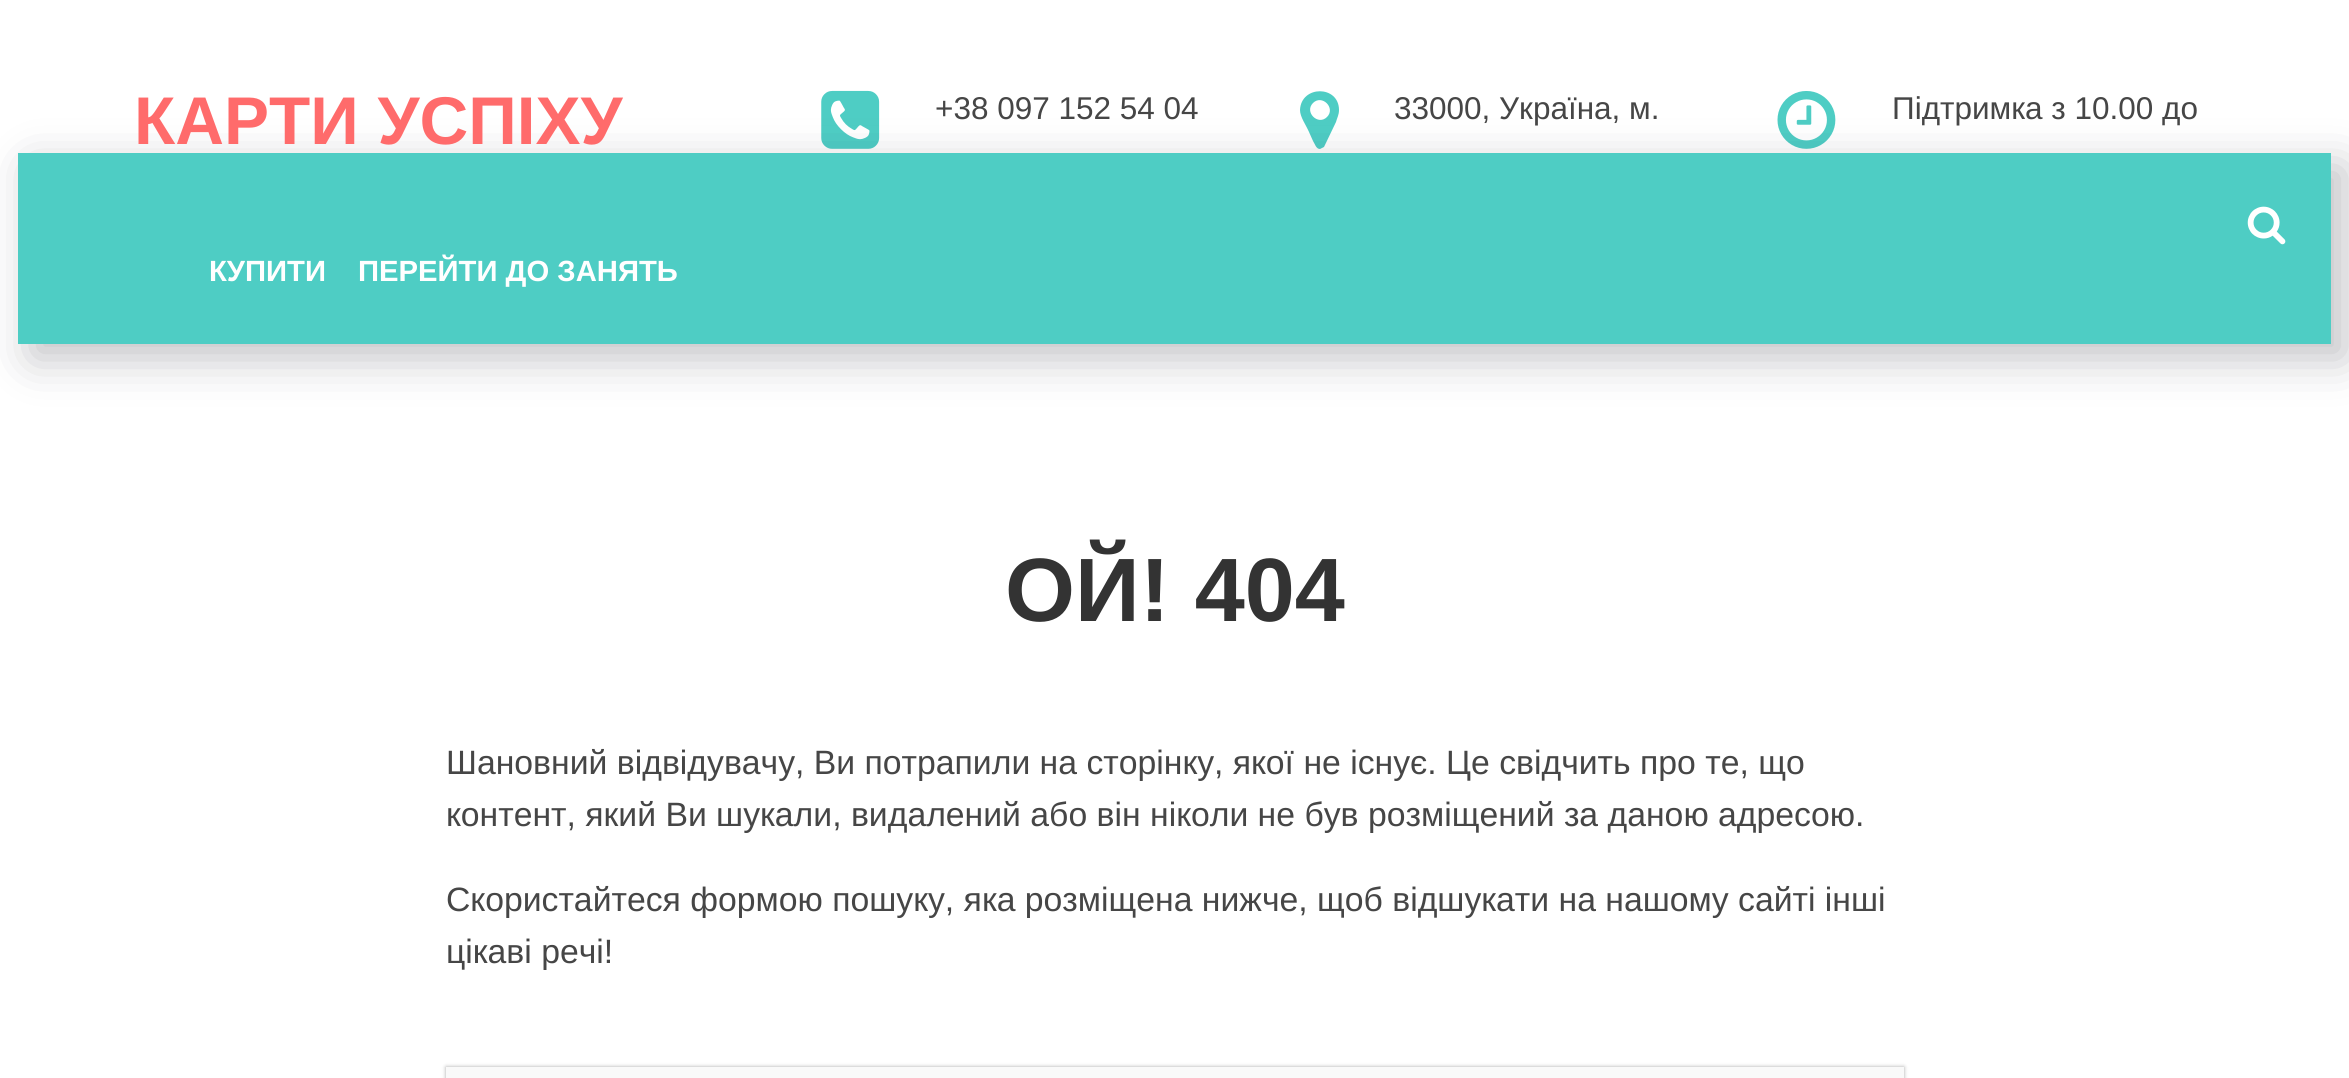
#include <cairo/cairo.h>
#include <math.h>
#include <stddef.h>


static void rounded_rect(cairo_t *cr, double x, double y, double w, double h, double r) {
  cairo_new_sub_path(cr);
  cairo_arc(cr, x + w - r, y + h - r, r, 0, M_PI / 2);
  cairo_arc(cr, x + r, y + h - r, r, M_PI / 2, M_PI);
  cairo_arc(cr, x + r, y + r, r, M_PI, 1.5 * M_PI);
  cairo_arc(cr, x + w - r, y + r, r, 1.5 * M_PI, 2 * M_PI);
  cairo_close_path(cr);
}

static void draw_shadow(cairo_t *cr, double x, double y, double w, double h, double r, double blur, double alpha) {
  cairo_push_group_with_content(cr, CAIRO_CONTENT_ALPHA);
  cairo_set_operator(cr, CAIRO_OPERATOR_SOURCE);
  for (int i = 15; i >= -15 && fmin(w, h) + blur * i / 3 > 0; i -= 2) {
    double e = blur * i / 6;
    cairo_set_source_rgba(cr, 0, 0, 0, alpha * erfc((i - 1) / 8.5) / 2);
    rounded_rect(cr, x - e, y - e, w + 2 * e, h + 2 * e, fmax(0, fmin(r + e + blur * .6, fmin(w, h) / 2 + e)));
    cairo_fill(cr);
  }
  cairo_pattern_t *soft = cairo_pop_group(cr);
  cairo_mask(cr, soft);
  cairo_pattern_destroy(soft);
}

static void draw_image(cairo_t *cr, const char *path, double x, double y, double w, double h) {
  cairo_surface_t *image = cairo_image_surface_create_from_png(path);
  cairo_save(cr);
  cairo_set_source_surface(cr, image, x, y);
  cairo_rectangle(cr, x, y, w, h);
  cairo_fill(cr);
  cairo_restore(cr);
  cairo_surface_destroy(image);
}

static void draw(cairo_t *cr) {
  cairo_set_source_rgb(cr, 1, 1, 1);
  cairo_paint(cr);
  draw_image(cr, "images/1.png", 821, 90, 59, 59);
  cairo_set_source_rgb(cr, 78 / 255.0, 205 / 255.0, 196 / 255.0);
  cairo_new_path(cr);
  cairo_move_to(cr, 1327, 117);
  cairo_curve_to(cr, 1336, 108, 1322, 94, 1313, 103);
  cairo_curve_to(cr, 1304, 112, 1318, 126, 1327, 117);
  cairo_close_path(cr);
  cairo_move_to(cr, 1339, 110);
  cairo_curve_to(cr, 1339, 115, 1337, 118, 1336, 122);
  cairo_line_to(cr, 1324, 147);
  cairo_line_to(cr, 1320, 149);
  cairo_curve_to(cr, 1316, 149, 1315, 144, 1313, 141);
  cairo_line_to(cr, 1309, 132);
  cairo_curve_to(cr, 1306, 125, 1300, 117, 1300, 110);
  cairo_curve_to(cr, 1301, 85, 1339, 85, 1339, 110);
  cairo_close_path(cr);
  cairo_fill(cr);
  draw_image(cr, "images/2.png", 1777, 91, 59, 58);
  cairo_set_source_rgb(cr, 48 / 255.0, 48 / 255.0, 60 / 255.0);
  draw_shadow(cr, 32, 167, 2313, 191, 0, 22.5, 0.3);
  cairo_set_source_rgb(cr, 78 / 255.0, 205 / 255.0, 196 / 255.0);
  cairo_rectangle(cr, 18, 153, 2313, 191);
  cairo_fill(cr);
  draw_image(cr, "images/3.png", 2247, 206, 39, 39);
  cairo_set_source_rgb(cr, 170 / 255.0, 170 / 255.0, 170 / 255.0);
  draw_shadow(cr, 446, 1067, 1458, 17, 0, 2, 1);
  cairo_set_source_rgb(cr, 249 / 255.0, 249 / 255.0, 249 / 255.0);
  cairo_rectangle(cr, 446, 1067, 1458, 11);
  cairo_fill(cr);
  cairo_select_font_face(cr, "Liberation Sans", CAIRO_FONT_SLANT_NORMAL, CAIRO_FONT_WEIGHT_BOLD);
  cairo_set_font_size(cr, 67.5);
  cairo_set_source_rgb(cr, 1, 107 / 255.0, 107 / 255.0);
  cairo_move_to(cr, 134, 144);
  cairo_show_text(cr, "КАРТИ УСПІХУ");
  cairo_select_font_face(cr, "Liberation Sans", CAIRO_FONT_SLANT_NORMAL, CAIRO_FONT_WEIGHT_NORMAL);
  cairo_set_font_size(cr, 31.5);
  cairo_set_source_rgb(cr, 70 / 255.0, 70 / 255.0, 70 / 255.0);
  cairo_move_to(cr, 935, 119);
  cairo_show_text(cr, "+38 097 152 54 04");
  cairo_move_to(cr, 1394, 119);
  cairo_show_text(cr, "33000, Україна, м.");
  cairo_move_to(cr, 1892, 119);
  cairo_show_text(cr, "Підтримка з 10.00 до");
  cairo_select_font_face(cr, "Liberation Sans", CAIRO_FONT_SLANT_NORMAL, CAIRO_FONT_WEIGHT_BOLD);
  cairo_set_font_size(cr, 29.25);
  cairo_set_source_rgb(cr, 1, 1, 1);
  cairo_move_to(cr, 209, 281);
  cairo_show_text(cr, "КУПИТИ");
  cairo_move_to(cr, 358, 281);
  cairo_show_text(cr, "ПЕРЕЙТИ ДО ЗАНЯТЬ");
  cairo_set_font_size(cr, 90);
  cairo_set_source_rgb(cr, 51 / 255.0, 51 / 255.0, 51 / 255.0);
  cairo_move_to(cr, 1005, 621);
  cairo_show_text(cr, "ОЙ! 404");
  cairo_select_font_face(cr, "Liberation Sans", CAIRO_FONT_SLANT_NORMAL, CAIRO_FONT_WEIGHT_NORMAL);
  cairo_set_font_size(cr, 33.75);
  cairo_set_source_rgb(cr, 70 / 255.0, 70 / 255.0, 70 / 255.0);
  cairo_move_to(cr, 446, 774);
  cairo_show_text(cr, "Шановний відвідувачу, Ви потрапили на сторінку, якої не існує. Це свідчить про те, що");
  cairo_move_to(cr, 446, 826);
  cairo_show_text(cr, "контент, який Ви шукали, видалений або він ніколи не був розміщений за даною адресою.");
  cairo_move_to(cr, 446, 911);
  cairo_show_text(cr, "Скористайтеся формою пошуку, яка розміщена нижче, щоб відшукати на нашому сайті інші");
  cairo_move_to(cr, 446, 963);
  cairo_show_text(cr, "цікаві речі!");
}

int main(void) {
  cairo_surface_t *surface = cairo_image_surface_create(CAIRO_FORMAT_RGB24, 2349, 1078);
  cairo_t *cr = cairo_create(surface);
  cairo_font_options_t *options = cairo_font_options_create();
  cairo_font_options_set_hint_metrics(options, CAIRO_HINT_METRICS_OFF);
  cairo_font_options_set_hint_style(options, CAIRO_HINT_STYLE_NONE);
  cairo_set_font_options(cr, options);
  cairo_set_miter_limit(cr, 4);
  draw(cr);
  cairo_surface_write_to_png(surface, "out.png");
  cairo_font_options_destroy(options);
  cairo_destroy(cr);
  cairo_surface_destroy(surface);
  return 0;
}
